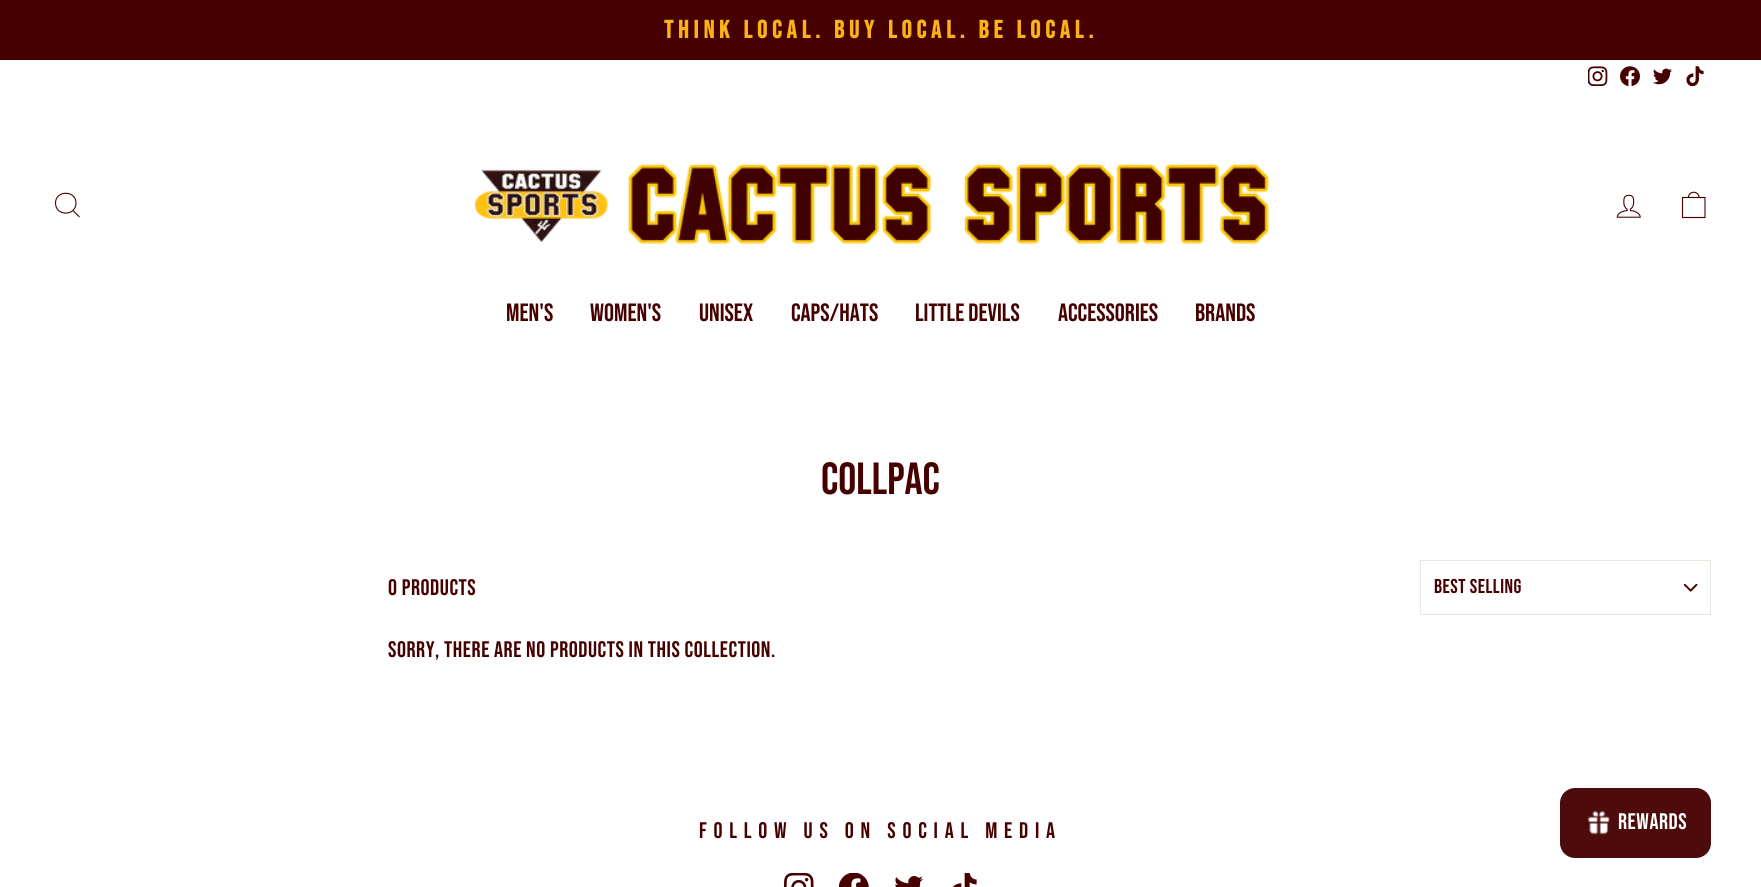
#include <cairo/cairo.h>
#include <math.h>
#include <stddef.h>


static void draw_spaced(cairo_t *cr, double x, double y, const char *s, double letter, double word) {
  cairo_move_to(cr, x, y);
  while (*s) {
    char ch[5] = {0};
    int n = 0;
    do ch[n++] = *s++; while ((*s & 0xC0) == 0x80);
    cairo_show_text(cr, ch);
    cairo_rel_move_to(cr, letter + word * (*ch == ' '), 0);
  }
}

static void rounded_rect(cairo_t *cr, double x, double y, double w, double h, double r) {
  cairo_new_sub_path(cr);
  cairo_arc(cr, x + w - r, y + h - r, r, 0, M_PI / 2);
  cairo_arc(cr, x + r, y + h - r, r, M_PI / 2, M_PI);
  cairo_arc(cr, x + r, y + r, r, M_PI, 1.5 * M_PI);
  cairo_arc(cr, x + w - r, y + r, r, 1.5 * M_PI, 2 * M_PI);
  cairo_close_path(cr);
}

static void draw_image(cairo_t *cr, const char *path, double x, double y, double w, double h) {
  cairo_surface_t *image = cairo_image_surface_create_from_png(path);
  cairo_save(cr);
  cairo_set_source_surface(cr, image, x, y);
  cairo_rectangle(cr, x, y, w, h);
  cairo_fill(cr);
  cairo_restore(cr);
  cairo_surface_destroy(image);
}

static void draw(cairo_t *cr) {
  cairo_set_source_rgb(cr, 1, 1, 1);
  cairo_paint(cr);
  cairo_set_source_rgb(cr, 70 / 255.0, 0, 0);
  cairo_rectangle(cr, 0, 0, 1761, 60);
  cairo_fill(cr);
  draw_image(cr, "images/1.png", 1588, 66, 20, 20);
  draw_image(cr, "images/2.png", 1620, 66, 20, 20);
  draw_image(cr, "images/3.png", 1653, 68, 19, 17);
  draw_image(cr, "images/4.png", 1686, 66, 18, 20);
  cairo_new_path(cr);
  cairo_move_to(cr, 76, 203);
  cairo_curve_to(cr, 76, 216.5, 55.5, 216.5, 55.5, 203);
  cairo_curve_to(cr, 55.5, 190, 76, 190, 76, 203);
  cairo_close_path(cr);
  cairo_move_to(cr, 79.5, 217);
  cairo_line_to(cr, 73, 210.5);
  cairo_set_line_width(cr, 1.1);
  cairo_stroke(cr);
  draw_image(cr, "images/5.png", 474, 163, 795, 81);
  draw_image(cr, "images/6.png", 1616, 194, 25, 24);
  cairo_new_path(cr);
  cairo_move_to(cr, 1682.5, 197.5);
  cairo_line_to(cr, 1705, 197.5);
  cairo_line_to(cr, 1705, 217.5);
  cairo_line_to(cr, 1682.5, 217.5);
  cairo_close_path(cr);
  cairo_move_to(cr, 1688.5, 197.5);
  cairo_curve_to(cr, 1688.5, 190.5, 1699, 190.5, 1699, 197.5);
  cairo_stroke(cr);
  draw_image(cr, "images/7.png", 1684, 584, 14, 8);
  cairo_rectangle(cr, 1420.5, 560.5, 290, 54);
  cairo_set_source_rgb(cr, 232 / 255.0, 232 / 255.0, 225 / 255.0);
  cairo_set_line_width(cr, 1);
  cairo_stroke(cr);
  draw_image(cr, "images/8.png", 784, 873, 30, 14);
  draw_image(cr, "images/9.png", 839, 873, 30, 14);
  draw_image(cr, "images/10.png", 895, 876, 28, 11);
  draw_image(cr, "images/11.png", 953, 873, 24, 14);
  cairo_set_source_rgb(cr, 77 / 255.0, 11 / 255.0, 11 / 255.0);
  rounded_rect(cr, 1560, 788, 151, 70, 15);
  cairo_fill(cr);
  draw_image(cr, "images/12.png", 1587, 810, 23, 25);
  cairo_select_font_face(cr, "Bebas Neue", CAIRO_FONT_SLANT_NORMAL, CAIRO_FONT_WEIGHT_BOLD);
  cairo_set_font_size(cr, 25);
  cairo_set_source_rgb(cr, 251 / 255.0, 178 / 255.0, 23 / 255.0);
  draw_spaced(cr, 664, 38, "THINK LOCAL. BUY LOCAL. BE LOCAL.", 5, 0);
  cairo_select_font_face(cr, "Bebas Neue", CAIRO_FONT_SLANT_NORMAL, CAIRO_FONT_WEIGHT_NORMAL);
  cairo_set_source_rgb(cr, 70 / 255.0, 0, 0);
  cairo_move_to(cr, 506, 321);
  cairo_show_text(cr, "MEN'S");
  cairo_move_to(cr, 590, 321);
  cairo_show_text(cr, "WOMEN'S");
  cairo_move_to(cr, 699, 321);
  cairo_show_text(cr, "UNISEX");
  cairo_move_to(cr, 791, 321);
  cairo_show_text(cr, "CAPS/HATS");
  cairo_move_to(cr, 915, 321);
  cairo_show_text(cr, "LITTLE DEVILS");
  cairo_move_to(cr, 1058, 321);
  cairo_show_text(cr, "ACCESSORIES");
  cairo_move_to(cr, 1195, 321);
  cairo_show_text(cr, "BRANDS");
  cairo_set_font_size(cr, 45);
  cairo_move_to(cr, 821, 494);
  cairo_show_text(cr, "COLLPAC");
  cairo_set_font_size(cr, 22.5);
  draw_spaced(cr, 388, 595, "0 products", 0.55, 0);
  cairo_set_font_size(cr, 20);
  draw_spaced(cr, 1434, 593, "Best selling", 0.5, 0);
  cairo_set_font_size(cr, 22.5);
  draw_spaced(cr, 388, 657, "Sorry, there are no products in this collection.", 0.55, 0);
  draw_spaced(cr, 699, 838, "FOLLOW US ON SOCIAL MEDIA", 6.75, 0);
  cairo_set_source_rgb(cr, 1, 1, 1);
  draw_spaced(cr, 1618, 829, "Rewards", 0.55, 0);
}

int main(void) {
  cairo_surface_t *surface = cairo_image_surface_create(CAIRO_FORMAT_RGB24, 1761, 887);
  cairo_t *cr = cairo_create(surface);
  cairo_font_options_t *options = cairo_font_options_create();
  cairo_font_options_set_hint_metrics(options, CAIRO_HINT_METRICS_OFF);
  cairo_font_options_set_hint_style(options, CAIRO_HINT_STYLE_NONE);
  cairo_set_font_options(cr, options);
  cairo_set_miter_limit(cr, 4);
  draw(cr);
  cairo_surface_write_to_png(surface, "out.png");
  cairo_font_options_destroy(options);
  cairo_destroy(cr);
  cairo_surface_destroy(surface);
  return 0;
}
